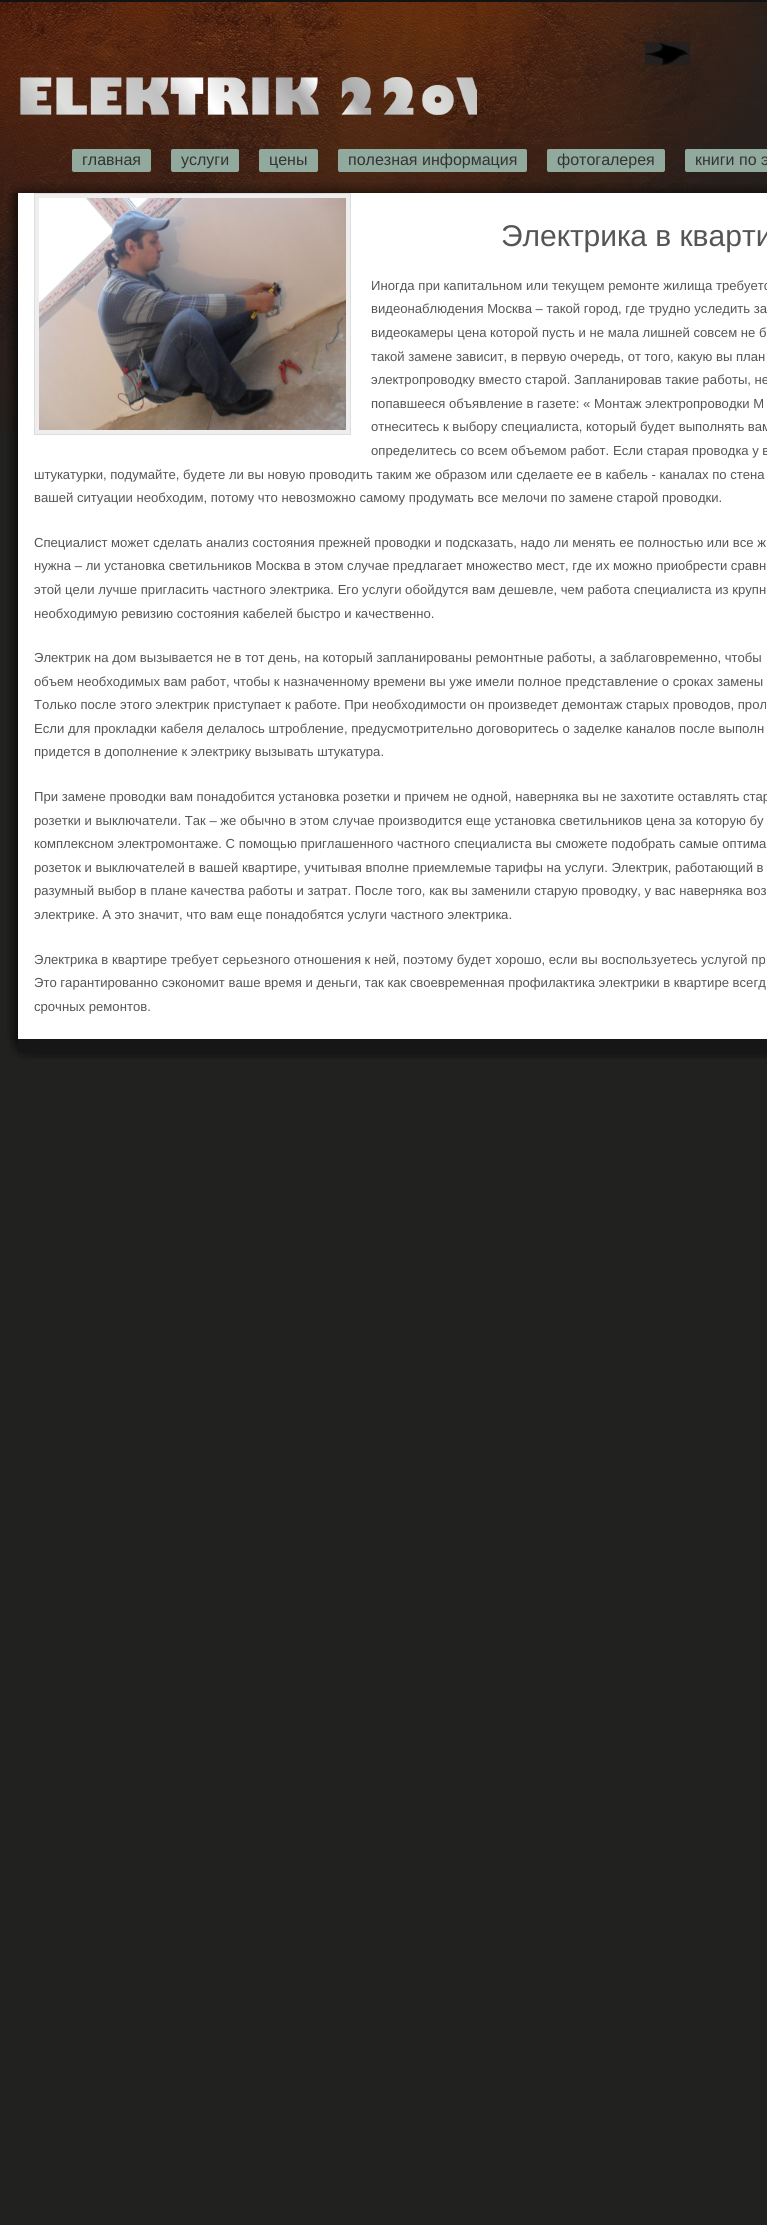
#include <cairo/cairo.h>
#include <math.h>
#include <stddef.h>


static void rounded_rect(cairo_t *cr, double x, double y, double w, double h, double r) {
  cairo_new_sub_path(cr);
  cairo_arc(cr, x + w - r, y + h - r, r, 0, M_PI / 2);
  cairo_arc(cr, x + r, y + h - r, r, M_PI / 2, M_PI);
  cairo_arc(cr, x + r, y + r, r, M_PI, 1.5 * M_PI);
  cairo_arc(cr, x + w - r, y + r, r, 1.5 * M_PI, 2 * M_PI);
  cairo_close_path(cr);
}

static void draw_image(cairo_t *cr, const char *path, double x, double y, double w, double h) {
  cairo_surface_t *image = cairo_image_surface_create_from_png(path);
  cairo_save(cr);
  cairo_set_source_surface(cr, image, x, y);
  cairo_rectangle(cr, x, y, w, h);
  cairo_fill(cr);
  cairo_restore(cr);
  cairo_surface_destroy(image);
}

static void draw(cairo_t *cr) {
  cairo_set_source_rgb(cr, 33 / 255.0, 33 / 255.0, 31 / 255.0);
  cairo_paint(cr);
  draw_image(cr, "images/1.png", 0, 2, 767, 430);
  cairo_set_source_rgb(cr, 18 / 255.0, 18 / 255.0, 18 / 255.0);
  cairo_rectangle(cr, 0, 0, 767, 2);
  cairo_fill(cr);
  draw_image(cr, "images/2.png", 645, 42, 45, 23);
  draw_image(cr, "images/3.png", 20, 77, 457, 38);
  cairo_set_source_rgb(cr, 145 / 255.0, 170 / 255.0, 157 / 255.0);
  rounded_rect(cr, 72, 149, 79, 23, 2);
  cairo_fill(cr);
  rounded_rect(cr, 171, 149, 68, 23, 2);
  cairo_fill(cr);
  rounded_rect(cr, 259, 149, 59, 23, 2);
  cairo_fill(cr);
  rounded_rect(cr, 338, 149, 189, 23, 2);
  cairo_fill(cr);
  rounded_rect(cr, 547, 149, 118, 23, 2);
  cairo_fill(cr);
  rounded_rect(cr, 685, 149, 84, 23, 2);
  cairo_fill(cr);
  draw_image(cr, "images/4.png", 10, 183, 757, 10);
  draw_image(cr, "images/5.png", 7, 193, 760, 846);
  cairo_set_source_rgb(cr, 238 / 255.0, 238 / 255.0, 238 / 255.0);
  cairo_rectangle(cr, 34.5, 193.5, 316, 241);
  cairo_fill_preserve(cr);
  cairo_set_source_rgb(cr, 221 / 255.0, 221 / 255.0, 221 / 255.0);
  cairo_set_line_width(cr, 1);
  cairo_stroke(cr);
  draw_image(cr, "images/6.png", 39, 198, 307, 232);
  draw_image(cr, "images/7.png", 9, 1039, 758, 20);
  cairo_select_font_face(cr, "Liberation Sans", CAIRO_FONT_SLANT_NORMAL, CAIRO_FONT_WEIGHT_NORMAL);
  cairo_set_font_size(cr, 16);
  cairo_set_source_rgb(cr, 51 / 255.0, 51 / 255.0, 51 / 255.0);
  cairo_move_to(cr, 82, 165);
  cairo_show_text(cr, "главная");
  cairo_move_to(cr, 181, 165);
  cairo_show_text(cr, "услуги");
  cairo_move_to(cr, 269, 165);
  cairo_show_text(cr, "цены");
  cairo_move_to(cr, 348, 165);
  cairo_show_text(cr, "полезная информация");
  cairo_move_to(cr, 557, 165);
  cairo_show_text(cr, "фотогалерея");
  cairo_move_to(cr, 695, 165);
  cairo_show_text(cr, "книги по э");
  cairo_set_font_size(cr, 30);
  cairo_set_source_rgb(cr, 85 / 255.0, 85 / 255.0, 85 / 255.0);
  cairo_move_to(cr, 501, 246);
  cairo_show_text(cr, "Электрика в кварти");
  cairo_set_font_size(cr, 13.1);
  cairo_move_to(cr, 371, 290);
  cairo_show_text(cr, "Иногда при капитальном или текущем ремонте жилища требуетс");
  cairo_move_to(cr, 371, 313);
  cairo_show_text(cr, "видеонаблюдения Москва – такой город, где трудно уследить за");
  cairo_move_to(cr, 371, 337);
  cairo_show_text(cr, "видеокамеры цена которой пусть и не мала лишней совсем не б");
  cairo_move_to(cr, 371, 361);
  cairo_show_text(cr, "такой замене зависит, в первую очередь, от того, какую вы план");
  cairo_move_to(cr, 371, 384);
  cairo_show_text(cr, "электропроводку вместо старой. Запланировав такие работы, не");
  cairo_move_to(cr, 371, 408);
  cairo_show_text(cr, "попавшееся объявление в газете: « Монтаж электропроводки М");
  cairo_move_to(cr, 371, 431);
  cairo_show_text(cr, "отнеситесь к выбору специалиста, который будет выполнять вам");
  cairo_move_to(cr, 371, 455);
  cairo_show_text(cr, "определитесь со всем объемом работ. Если старая проводка у в");
  cairo_move_to(cr, 34, 479);
  cairo_show_text(cr, "штукатурки, подумайте, будете ли вы новую проводить таким же образом или сделаете ее в кабель - каналах по стена");
  cairo_move_to(cr, 34, 502);
  cairo_show_text(cr, "вашей ситуации необходим, потому что невозможно самому продумать все мелочи по замене старой проводки.");
  cairo_move_to(cr, 34, 547);
  cairo_show_text(cr, "Специалист может сделать анализ состояния прежней проводки и подсказать, надо ли менять ее полностью или все ж");
  cairo_move_to(cr, 34, 570);
  cairo_show_text(cr, "нужна – ли установка светильников Москва в этом случае предлагает множество мест, где их можно приобрести сравн");
  cairo_move_to(cr, 34, 594);
  cairo_show_text(cr, "этой цели лучше пригласить частного электрика. Его услуги обойдутся вам дешевле, чем работа специалиста из крупн");
  cairo_move_to(cr, 34, 618);
  cairo_show_text(cr, "необходимую ревизию состояния кабелей быстро и качественно.");
  cairo_move_to(cr, 34, 662);
  cairo_show_text(cr, "Электрик на дом вызывается не в тот день, на который запланированы ремонтные работы, а заблаговременно, чтобы");
  cairo_move_to(cr, 34, 686);
  cairo_show_text(cr, "объем необходимых вам работ, чтобы к назначенному времени вы уже имели полное представление о сроках замены");
  cairo_move_to(cr, 34, 709);
  cairo_show_text(cr, "Только после этого электрик приступает к работе. При необходимости он произведет демонтаж старых проводов, прол");
  cairo_move_to(cr, 34, 733);
  cairo_show_text(cr, "Если для прокладки кабеля делалось штробление, предусмотрительно договоритесь о заделке каналов после выполн");
  cairo_move_to(cr, 34, 756);
  cairo_show_text(cr, "придется в дополнение к электрику вызывать штукатура.");
  cairo_move_to(cr, 34, 801);
  cairo_show_text(cr, "При замене проводки вам понадобится установка розетки и причем не одной, наверняка вы не захотите оставлять стар");
  cairo_move_to(cr, 34, 825);
  cairo_show_text(cr, "розетки и выключатели. Так – же обычно в этом случае производится еще установка светильников цена за которую бу");
  cairo_move_to(cr, 34, 848);
  cairo_show_text(cr, "комплексном электромонтаже. С помощью приглашенного частного специалиста вы сможете подобрать самые оптима");
  cairo_move_to(cr, 34, 872);
  cairo_show_text(cr, "розеток и выключателей в вашей квартире, учитывая вполне приемлемые тарифы на услуги. Электрик, работающий в");
  cairo_move_to(cr, 34, 895);
  cairo_show_text(cr, "разумный выбор в плане качества работы и затрат. После того, как вы заменили старую проводку, у вас наверняка воз");
  cairo_move_to(cr, 34, 919);
  cairo_show_text(cr, "электрике. А это значит, что вам еще понадобятся услуги частного электрика.");
  cairo_move_to(cr, 34, 964);
  cairo_show_text(cr, "Электрика в квартире требует серьезного отношения к ней, поэтому будет хорошо, если вы воспользуетесь услугой пр");
  cairo_move_to(cr, 34, 987);
  cairo_show_text(cr, "Это гарантированно сэкономит ваше время и деньги, так как своевременная профилактика электрики в квартире всегд");
  cairo_move_to(cr, 34, 1011);
  cairo_show_text(cr, "срочных ремонтов.");
}

int main(void) {
  cairo_surface_t *surface = cairo_image_surface_create(CAIRO_FORMAT_RGB24, 767, 2225);
  cairo_t *cr = cairo_create(surface);
  cairo_font_options_t *options = cairo_font_options_create();
  cairo_font_options_set_hint_metrics(options, CAIRO_HINT_METRICS_OFF);
  cairo_font_options_set_hint_style(options, CAIRO_HINT_STYLE_NONE);
  cairo_set_font_options(cr, options);
  cairo_set_miter_limit(cr, 4);
  draw(cr);
  cairo_surface_write_to_png(surface, "out.png");
  cairo_font_options_destroy(options);
  cairo_destroy(cr);
  cairo_surface_destroy(surface);
  return 0;
}
